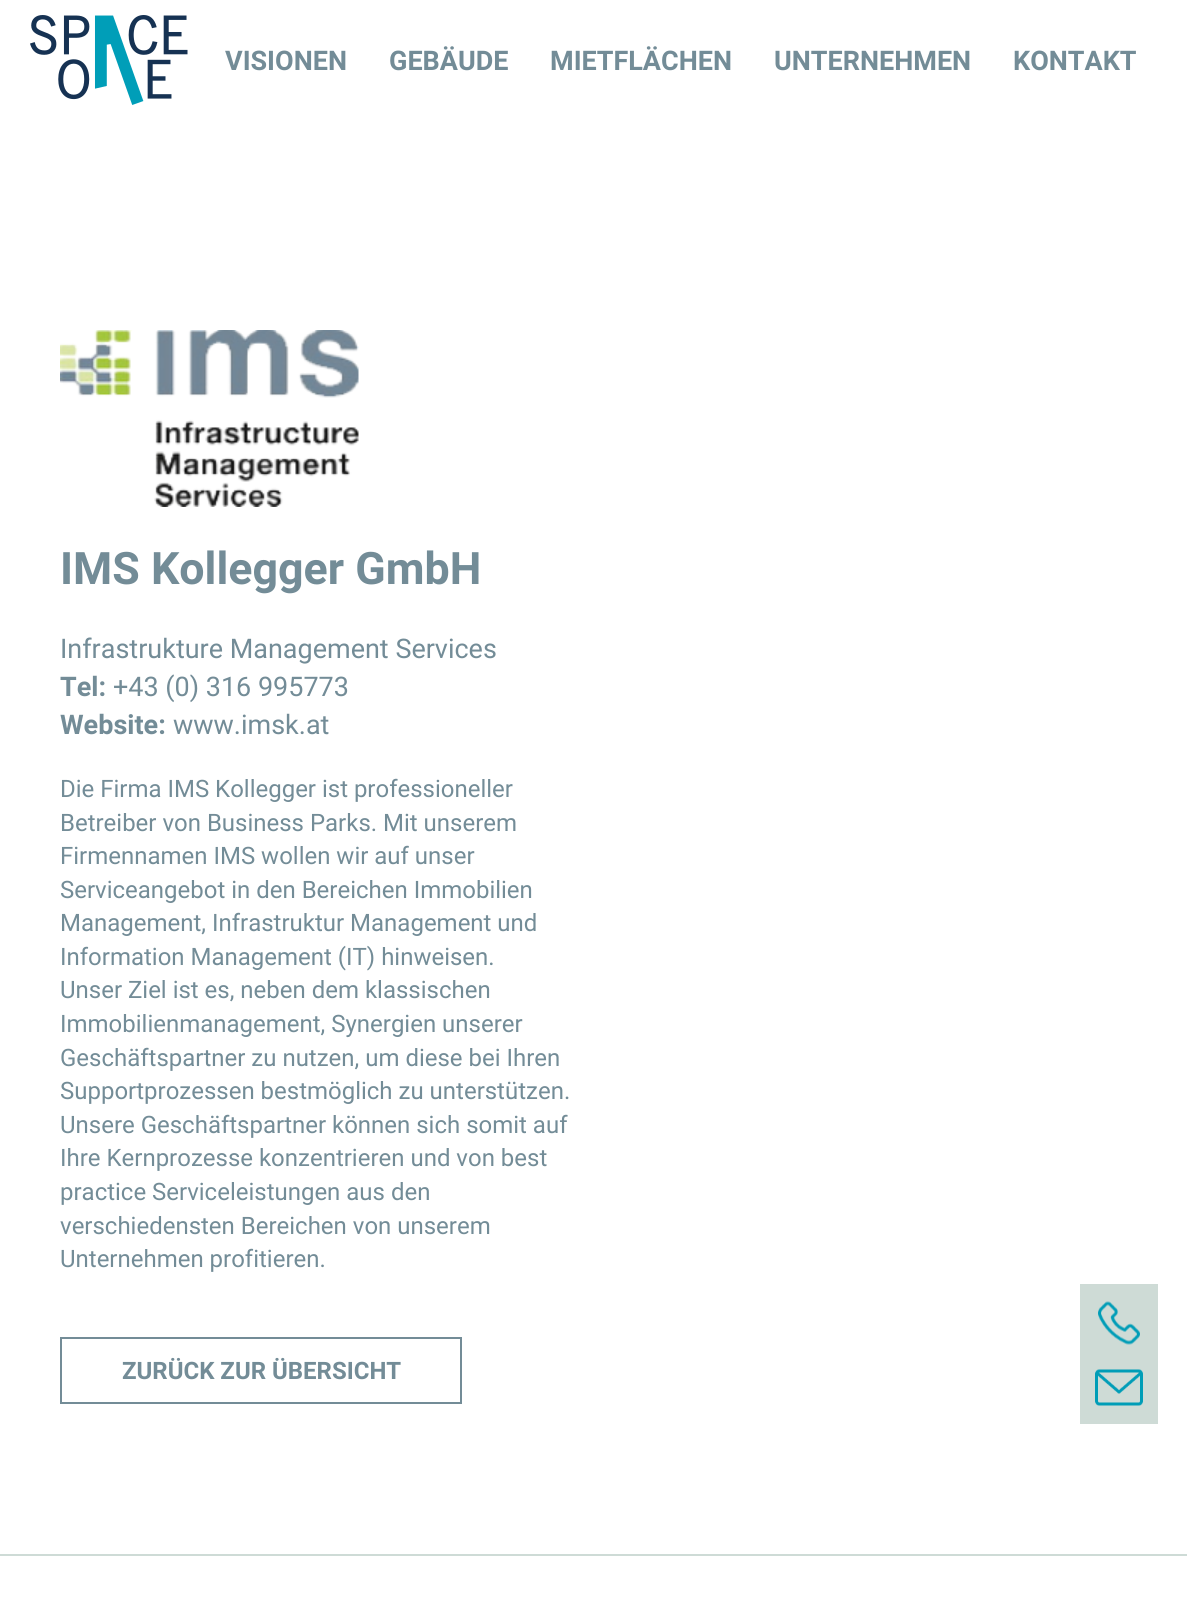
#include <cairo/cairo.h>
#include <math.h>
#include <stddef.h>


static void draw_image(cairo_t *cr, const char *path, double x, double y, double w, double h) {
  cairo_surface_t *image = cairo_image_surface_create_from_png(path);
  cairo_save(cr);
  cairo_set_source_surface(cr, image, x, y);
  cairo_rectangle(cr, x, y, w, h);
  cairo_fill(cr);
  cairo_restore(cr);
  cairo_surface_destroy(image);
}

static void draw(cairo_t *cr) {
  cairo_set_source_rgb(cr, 1, 1, 1);
  cairo_paint(cr);
  draw_image(cr, "images/1.png", 30, 15, 158, 90);
  draw_image(cr, "images/2.png", 60, 330, 299, 177);
  cairo_rectangle(cr, 61, 1338, 400, 65);
  cairo_set_source_rgb(cr, 115 / 255.0, 140 / 255.0, 151 / 255.0);
  cairo_stroke(cr);
  cairo_set_source_rgb(cr, 206 / 255.0, 219 / 255.0, 214 / 255.0);
  cairo_rectangle(cr, 1080, 1284, 78, 140);
  cairo_fill(cr);
  draw_image(cr, "images/3.png", 1098, 1301, 42, 44);
  draw_image(cr, "images/4.png", 1095, 1369, 48, 37);
  cairo_rectangle(cr, 0, 1554, 1187, 2);
  cairo_fill(cr);
  cairo_select_font_face(cr, "Roboto", CAIRO_FONT_SLANT_NORMAL, CAIRO_FONT_WEIGHT_BOLD);
  cairo_set_font_size(cr, 27);
  cairo_set_source_rgb(cr, 115 / 255.0, 140 / 255.0, 151 / 255.0);
  cairo_move_to(cr, 225, 70);
  cairo_show_text(cr, "VISIONEN");
  cairo_move_to(cr, 389, 70);
  cairo_show_text(cr, "GEBÄUDE");
  cairo_move_to(cr, 550, 70);
  cairo_show_text(cr, "MIETFLÄCHEN");
  cairo_move_to(cr, 774, 70);
  cairo_show_text(cr, "UNTERNEHMEN");
  cairo_move_to(cr, 1013, 70);
  cairo_show_text(cr, "KONTAKT");
  cairo_set_font_size(cr, 44.75);
  cairo_move_to(cr, 60, 584);
  cairo_show_text(cr, "IMS Kollegger GmbH");
  cairo_select_font_face(cr, "Roboto", CAIRO_FONT_SLANT_NORMAL, CAIRO_FONT_WEIGHT_NORMAL);
  cairo_set_font_size(cr, 27);
  cairo_move_to(cr, 60, 658);
  cairo_show_text(cr, "Infrastrukture Management Services");
  cairo_select_font_face(cr, "Roboto", CAIRO_FONT_SLANT_NORMAL, CAIRO_FONT_WEIGHT_BOLD);
  cairo_move_to(cr, 60, 696);
  cairo_show_text(cr, "Tel:");
  cairo_select_font_face(cr, "Roboto", CAIRO_FONT_SLANT_NORMAL, CAIRO_FONT_WEIGHT_NORMAL);
  cairo_move_to(cr, 113, 696);
  cairo_show_text(cr, "+43 (0) 316 995773");
  cairo_select_font_face(cr, "Roboto", CAIRO_FONT_SLANT_NORMAL, CAIRO_FONT_WEIGHT_BOLD);
  cairo_move_to(cr, 60, 734);
  cairo_show_text(cr, "Website:");
  cairo_select_font_face(cr, "Roboto", CAIRO_FONT_SLANT_NORMAL, CAIRO_FONT_WEIGHT_NORMAL);
  cairo_move_to(cr, 173, 734);
  cairo_show_text(cr, "www.imsk.at");
  cairo_set_font_size(cr, 24);
  cairo_move_to(cr, 60, 797);
  cairo_show_text(cr, "Die Firma IMS Kollegger ist professioneller");
  cairo_move_to(cr, 60, 831);
  cairo_show_text(cr, "Betreiber von Business Parks. Mit unserem");
  cairo_move_to(cr, 60, 864);
  cairo_show_text(cr, "Firmennamen IMS wollen wir auf unser");
  cairo_move_to(cr, 60, 898);
  cairo_show_text(cr, "Serviceangebot in den Bereichen Immobilien");
  cairo_move_to(cr, 60, 931);
  cairo_show_text(cr, "Management, Infrastruktur Management und");
  cairo_move_to(cr, 60, 965);
  cairo_show_text(cr, "Information Management (IT) hinweisen.");
  cairo_move_to(cr, 60, 998);
  cairo_show_text(cr, "Unser Ziel ist es, neben dem klassischen");
  cairo_move_to(cr, 60, 1032);
  cairo_show_text(cr, "Immobilienmanagement, Synergien unserer");
  cairo_move_to(cr, 60, 1066);
  cairo_show_text(cr, "Geschäftspartner zu nutzen, um diese bei Ihren");
  cairo_move_to(cr, 60, 1099);
  cairo_show_text(cr, "Supportprozessen bestmöglich zu unterstützen.");
  cairo_move_to(cr, 60, 1133);
  cairo_show_text(cr, "Unsere Geschäftspartner können sich somit auf");
  cairo_move_to(cr, 60, 1166);
  cairo_show_text(cr, "Ihre Kernprozesse konzentrieren und von best");
  cairo_move_to(cr, 60, 1200);
  cairo_show_text(cr, "practice Serviceleistungen aus den");
  cairo_move_to(cr, 60, 1234);
  cairo_show_text(cr, "verschiedensten Bereichen von unserem");
  cairo_move_to(cr, 60, 1267);
  cairo_show_text(cr, "Unternehmen profitieren.");
  cairo_select_font_face(cr, "Roboto", CAIRO_FONT_SLANT_NORMAL, CAIRO_FONT_WEIGHT_BOLD);
  cairo_move_to(cr, 122, 1379);
  cairo_show_text(cr, "ZURÜCK ZUR ÜBERSICHT");
}

int main(void) {
  cairo_surface_t *surface = cairo_image_surface_create(CAIRO_FORMAT_RGB24, 1187, 1622);
  cairo_t *cr = cairo_create(surface);
  cairo_font_options_t *options = cairo_font_options_create();
  cairo_font_options_set_hint_metrics(options, CAIRO_HINT_METRICS_OFF);
  cairo_font_options_set_hint_style(options, CAIRO_HINT_STYLE_NONE);
  cairo_set_font_options(cr, options);
  cairo_set_miter_limit(cr, 4);
  draw(cr);
  cairo_surface_write_to_png(surface, "out.png");
  cairo_font_options_destroy(options);
  cairo_destroy(cr);
  cairo_surface_destroy(surface);
  return 0;
}
